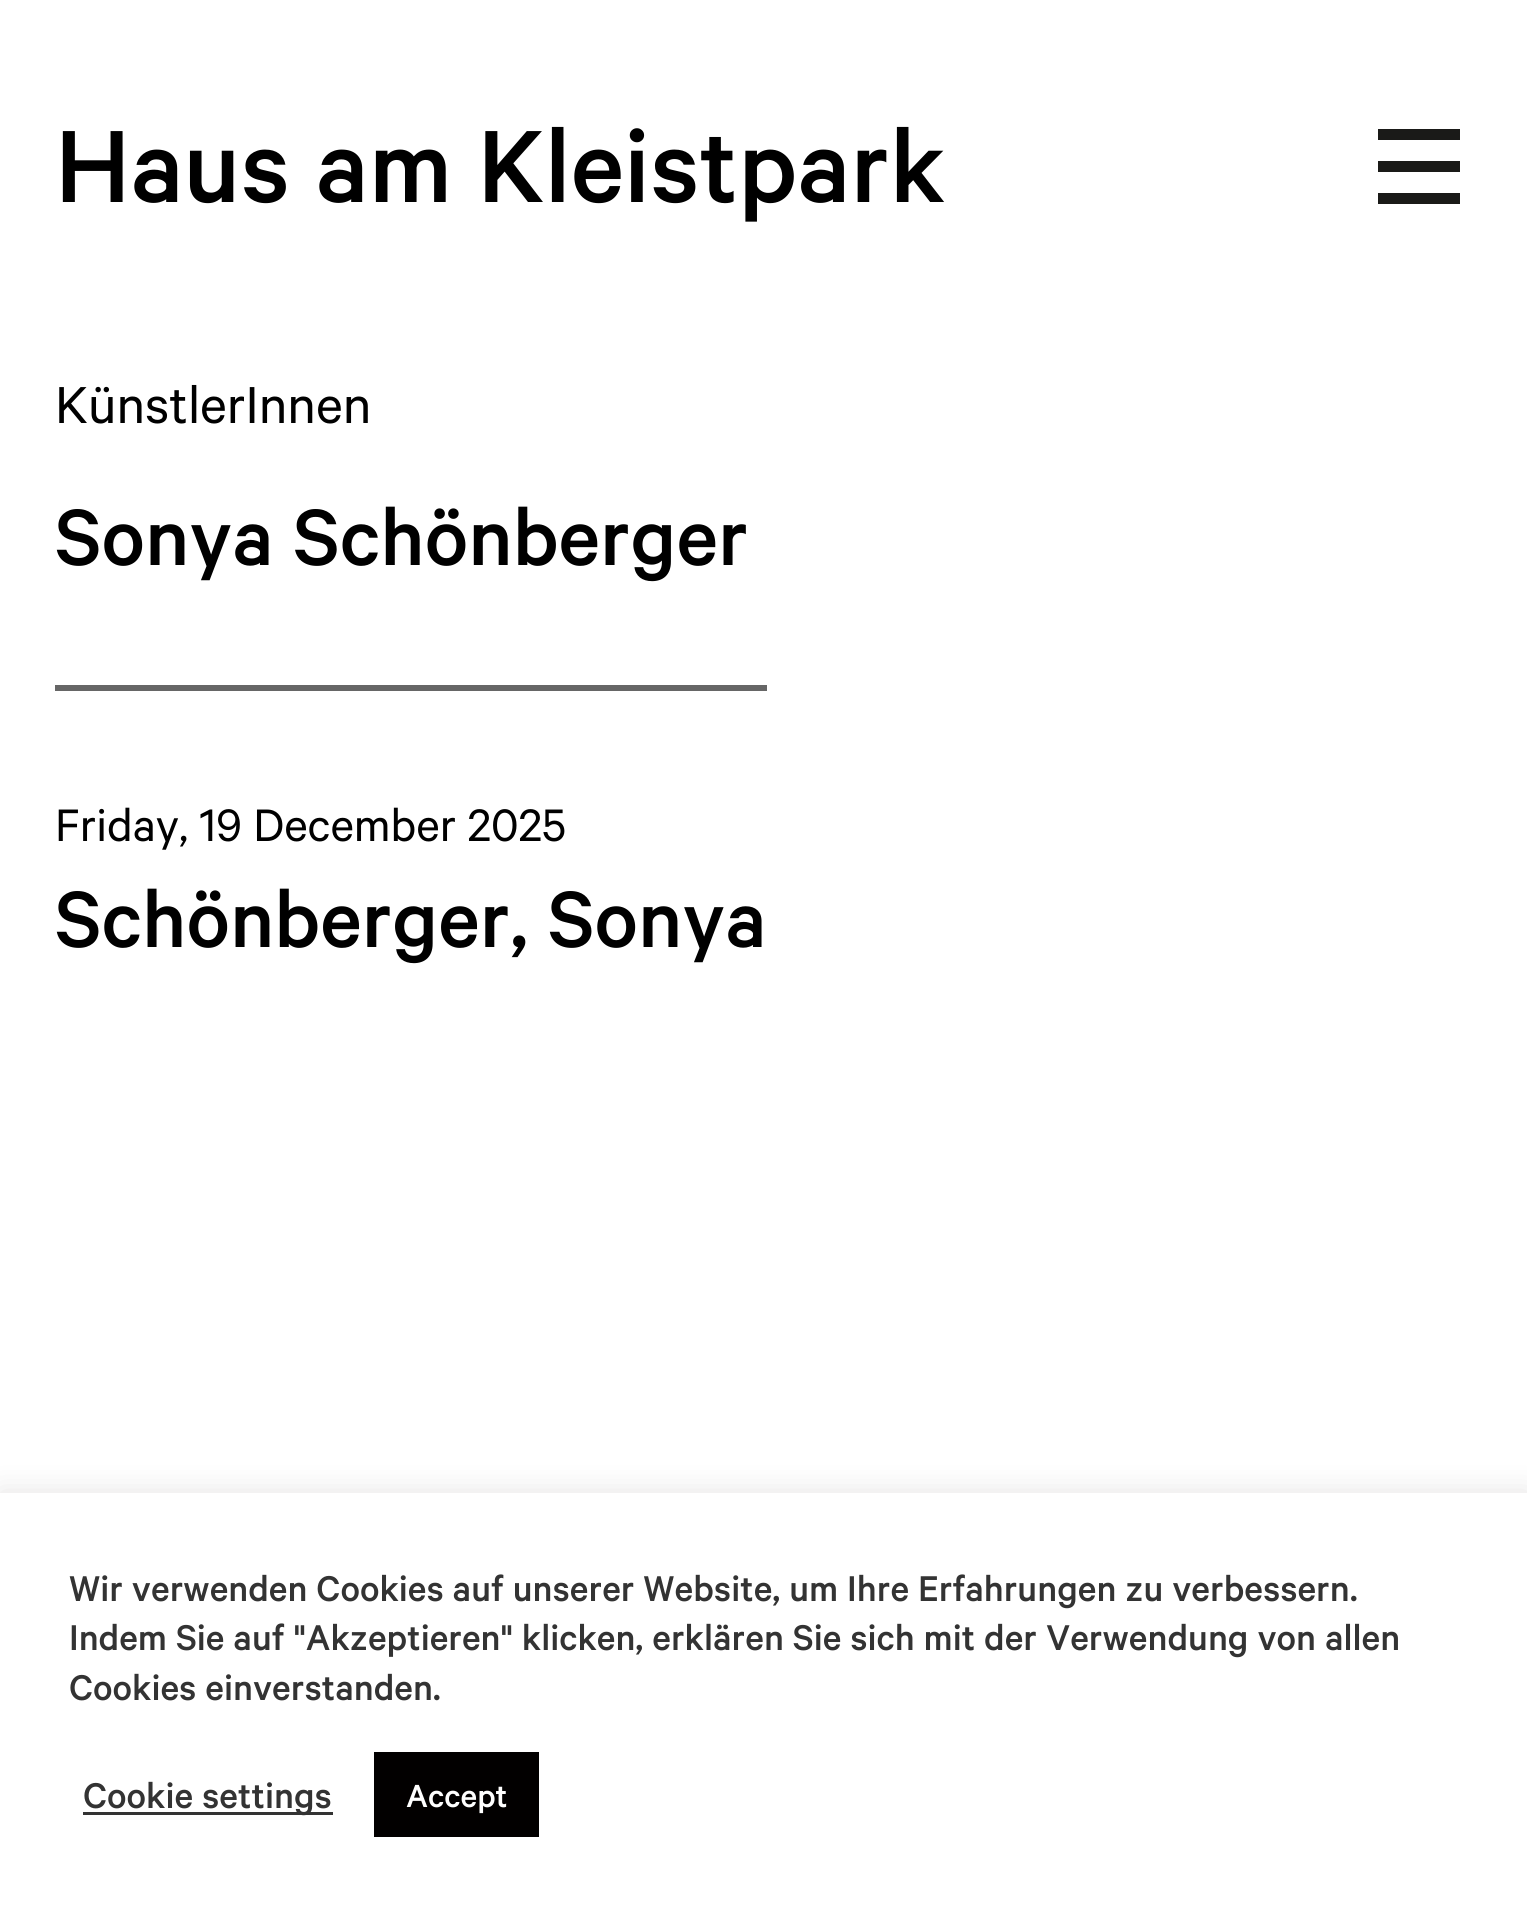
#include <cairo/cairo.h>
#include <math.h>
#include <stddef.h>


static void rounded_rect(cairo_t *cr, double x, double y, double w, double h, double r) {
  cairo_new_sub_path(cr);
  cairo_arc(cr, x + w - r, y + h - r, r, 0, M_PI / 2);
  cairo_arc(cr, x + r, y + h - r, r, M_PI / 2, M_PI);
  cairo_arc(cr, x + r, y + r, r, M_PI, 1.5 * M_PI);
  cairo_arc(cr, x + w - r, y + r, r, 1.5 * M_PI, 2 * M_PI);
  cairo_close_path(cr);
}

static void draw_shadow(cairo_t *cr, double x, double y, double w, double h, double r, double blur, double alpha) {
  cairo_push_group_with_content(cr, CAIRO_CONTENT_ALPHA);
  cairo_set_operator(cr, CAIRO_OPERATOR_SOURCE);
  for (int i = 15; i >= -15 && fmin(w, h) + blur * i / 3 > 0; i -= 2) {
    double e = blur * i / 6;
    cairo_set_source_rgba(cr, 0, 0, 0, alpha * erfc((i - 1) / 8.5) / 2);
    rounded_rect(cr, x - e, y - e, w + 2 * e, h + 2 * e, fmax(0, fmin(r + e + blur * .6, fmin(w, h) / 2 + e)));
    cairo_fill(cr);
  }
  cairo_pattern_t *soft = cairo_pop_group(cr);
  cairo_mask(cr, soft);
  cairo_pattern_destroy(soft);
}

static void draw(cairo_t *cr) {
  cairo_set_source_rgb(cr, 1, 1, 1);
  cairo_paint(cr);
  cairo_set_source_rgb(cr, 26 / 255.0, 26 / 255.0, 24 / 255.0);
  cairo_rectangle(cr, 1378, 129, 82, 11);
  cairo_fill(cr);
  cairo_rectangle(cr, 1378, 161, 82, 11);
  cairo_fill(cr);
  cairo_rectangle(cr, 1378, 193, 82, 11);
  cairo_fill(cr);
  cairo_set_source_rgb(cr, 102 / 255.0, 102 / 255.0, 102 / 255.0);
  cairo_rectangle(cr, 55, 685, 712, 6);
  cairo_fill(cr);
  cairo_set_source_rgb(cr, 172 / 255.0, 171 / 255.0, 171 / 255.0);
  draw_shadow(cr, 0, 1491, 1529, 426, 0, 14, 0.3);
  cairo_set_source_rgb(cr, 1, 1, 1);
  cairo_rectangle(cr, 0, 1493, 1527, 424);
  cairo_fill(cr);
  cairo_set_source_rgb(cr, 51 / 255.0, 51 / 255.0, 51 / 255.0);
  cairo_rectangle(cr, 83, 1812, 250, 3);
  cairo_fill(cr);
  cairo_set_source_rgb(cr, 2 / 255.0, 0, 0);
  cairo_rectangle(cr, 374, 1752, 165, 85);
  cairo_fill(cr);
  cairo_select_font_face(cr, "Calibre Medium", CAIRO_FONT_SLANT_NORMAL, CAIRO_FONT_WEIGHT_NORMAL);
  cairo_set_font_size(cr, 115.5);
  cairo_set_source_rgb(cr, 0, 0, 0);
  cairo_move_to(cr, 55, 202);
  cairo_show_text(cr, "Haus am Kleistpark");
  cairo_select_font_face(cr, "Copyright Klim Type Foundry", CAIRO_FONT_SLANT_NORMAL, CAIRO_FONT_WEIGHT_NORMAL);
  cairo_set_font_size(cr, 58.5);
  cairo_move_to(cr, 55, 423);
  cairo_show_text(cr, "KünstlerInnen");
  cairo_select_font_face(cr, "Calibre Medium", CAIRO_FONT_SLANT_NORMAL, CAIRO_FONT_WEIGHT_NORMAL);
  cairo_set_font_size(cr, 89.75);
  cairo_move_to(cr, 55, 565);
  cairo_show_text(cr, "Sonya Schönberger");
  cairo_select_font_face(cr, "Copyright Klim Type Foundry", CAIRO_FONT_SLANT_NORMAL, CAIRO_FONT_WEIGHT_NORMAL);
  cairo_set_font_size(cr, 51.25);
  cairo_move_to(cr, 55, 841);
  cairo_show_text(cr, "Friday, 19 December 2025");
  cairo_select_font_face(cr, "Calibre Medium", CAIRO_FONT_SLANT_NORMAL, CAIRO_FONT_WEIGHT_NORMAL);
  cairo_set_font_size(cr, 89.75);
  cairo_move_to(cr, 55, 947);
  cairo_show_text(cr, "Schönberger, Sonya");
  cairo_set_font_size(cr, 40.3);
  cairo_set_source_rgb(cr, 51 / 255.0, 51 / 255.0, 51 / 255.0);
  cairo_move_to(cr, 69, 1601);
  cairo_show_text(cr, "Wir verwenden Cookies auf unserer Website, um Ihre Erfahrungen zu verbessern.");
  cairo_move_to(cr, 69, 1650);
  cairo_show_text(cr, "Indem Sie auf \"Akzeptieren\" klicken, erklären Sie sich mit der Verwendung von allen");
  cairo_move_to(cr, 69, 1700);
  cairo_show_text(cr, "Cookies einverstanden.");
  cairo_move_to(cr, 83, 1808);
  cairo_show_text(cr, "Cookie settings");
  cairo_set_font_size(cr, 36);
  cairo_set_source_rgb(cr, 1, 1, 1);
  cairo_move_to(cr, 406, 1807);
  cairo_show_text(cr, "Accept");
}

int main(void) {
  cairo_surface_t *surface = cairo_image_surface_create(CAIRO_FORMAT_RGB24, 1527, 1917);
  cairo_t *cr = cairo_create(surface);
  cairo_font_options_t *options = cairo_font_options_create();
  cairo_font_options_set_hint_metrics(options, CAIRO_HINT_METRICS_OFF);
  cairo_font_options_set_hint_style(options, CAIRO_HINT_STYLE_NONE);
  cairo_set_font_options(cr, options);
  cairo_set_miter_limit(cr, 4);
  draw(cr);
  cairo_surface_write_to_png(surface, "out.png");
  cairo_font_options_destroy(options);
  cairo_destroy(cr);
  cairo_surface_destroy(surface);
  return 0;
}
